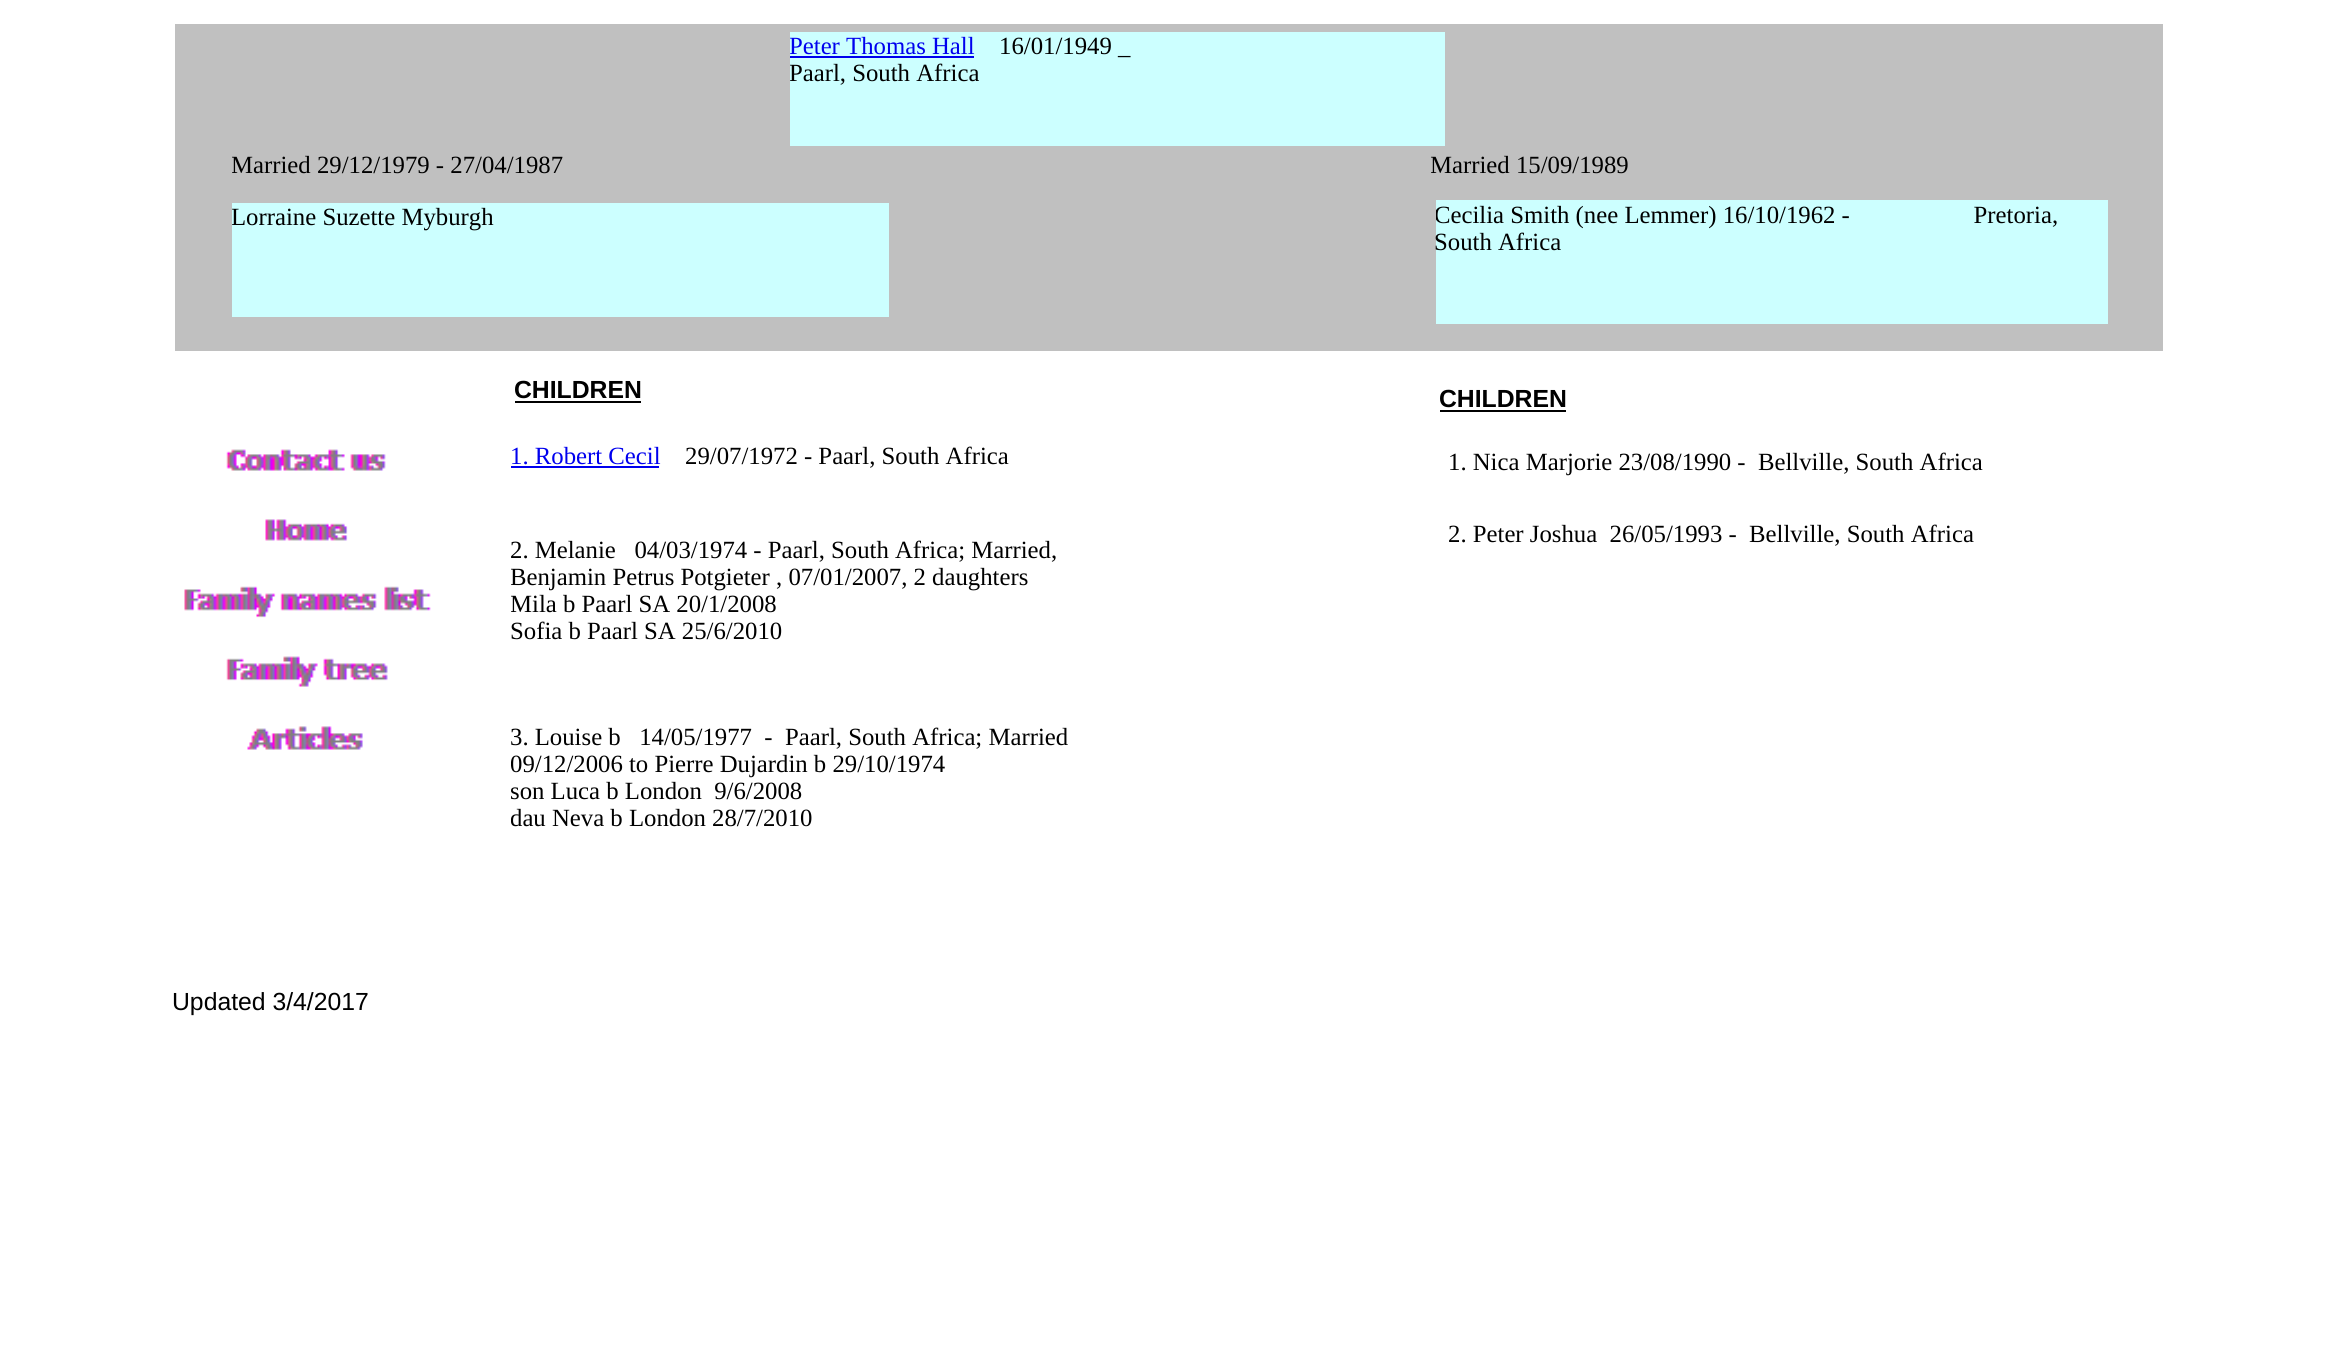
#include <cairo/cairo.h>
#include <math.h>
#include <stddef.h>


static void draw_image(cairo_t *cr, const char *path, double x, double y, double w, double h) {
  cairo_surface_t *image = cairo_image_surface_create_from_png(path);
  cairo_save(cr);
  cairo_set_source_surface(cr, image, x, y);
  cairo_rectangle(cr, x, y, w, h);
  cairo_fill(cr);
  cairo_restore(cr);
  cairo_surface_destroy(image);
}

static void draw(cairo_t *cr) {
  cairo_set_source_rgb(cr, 1, 1, 1);
  cairo_paint(cr);
  cairo_set_source_rgb(cr, 192 / 255.0, 192 / 255.0, 192 / 255.0);
  cairo_rectangle(cr, 175, 24, 1988, 327);
  cairo_fill(cr);
  cairo_set_source_rgb(cr, 204 / 255.0, 1, 1);
  cairo_rectangle(cr, 790, 32, 655, 114);
  cairo_fill(cr);
  cairo_set_source_rgb(cr, 0, 0, 238 / 255.0);
  cairo_rectangle(cr, 790, 56, 184, 2);
  cairo_fill(cr);
  cairo_set_source_rgb(cr, 204 / 255.0, 1, 1);
  cairo_rectangle(cr, 232, 203, 657, 114);
  cairo_fill(cr);
  cairo_rectangle(cr, 1436, 200, 672, 124);
  cairo_fill(cr);
  cairo_set_source_rgb(cr, 0, 0, 0);
  cairo_rectangle(cr, 515, 401, 126, 2);
  cairo_fill(cr);
  cairo_rectangle(cr, 1440, 410, 126, 2);
  cairo_fill(cr);
  draw_image(cr, "images/1.png", 226, 449, 160, 22);
  cairo_set_source_rgb(cr, 0, 0, 238 / 255.0);
  cairo_rectangle(cr, 511, 466, 148, 2);
  cairo_fill(cr);
  draw_image(cr, "images/2.png", 265, 519, 83, 22);
  draw_image(cr, "images/3.png", 184, 586, 247, 32);
  draw_image(cr, "images/4.png", 226, 656, 162, 31);
  draw_image(cr, "images/5.png", 247, 726, 116, 24);
  cairo_save(cr);
  cairo_rectangle(cr, 790, 32, 655, 114);
  cairo_clip(cr);
  cairo_select_font_face(cr, "Liberation Serif", CAIRO_FONT_SLANT_NORMAL, CAIRO_FONT_WEIGHT_NORMAL);
  cairo_set_font_size(cr, 24.75);
  cairo_move_to(cr, 789, 54);
  cairo_show_text(cr, "Peter Thomas Hall");
  cairo_restore(cr);
  cairo_select_font_face(cr, "Liberation Serif", CAIRO_FONT_SLANT_NORMAL, CAIRO_FONT_WEIGHT_NORMAL);
  cairo_set_font_size(cr, 24.75);
  cairo_set_source_rgb(cr, 0, 0, 0);
  cairo_move_to(cr, 999, 54);
  cairo_show_text(cr, "16/01/1949 _");
  cairo_save(cr);
  cairo_rectangle(cr, 790, 32, 655, 114);
  cairo_clip(cr);
  cairo_move_to(cr, 789, 81);
  cairo_show_text(cr, "Paarl, South Africa");
  cairo_restore(cr);
  cairo_save(cr);
  cairo_rectangle(cr, 232, 151, 481, 56);
  cairo_clip(cr);
  cairo_move_to(cr, 231, 173);
  cairo_show_text(cr, "Married 29/12/1979 - 27/04/1987");
  cairo_restore(cr);
  cairo_save(cr);
  cairo_rectangle(cr, 1431, 151, 338, 47);
  cairo_clip(cr);
  cairo_move_to(cr, 1430, 173);
  cairo_show_text(cr, "Married 15/09/1989");
  cairo_restore(cr);
  cairo_save(cr);
  cairo_rectangle(cr, 232, 203, 657, 114);
  cairo_clip(cr);
  cairo_move_to(cr, 231, 225);
  cairo_show_text(cr, "Lorraine Suzette Myburgh");
  cairo_restore(cr);
  cairo_save(cr);
  cairo_rectangle(cr, 1436, 200, 672, 124);
  cairo_clip(cr);
  cairo_move_to(cr, 1434, 223);
  cairo_show_text(cr, "Cecilia Smith (nee Lemmer) 16/10/1962 -                    Pretoria,");
  cairo_restore(cr);
  cairo_move_to(cr, 1434, 250);
  cairo_show_text(cr, "South Africa");
  cairo_select_font_face(cr, "Liberation Sans", CAIRO_FONT_SLANT_NORMAL, CAIRO_FONT_WEIGHT_BOLD);
  cairo_move_to(cr, 514, 398);
  cairo_show_text(cr, "CHILDREN");
  cairo_move_to(cr, 1439, 407);
  cairo_show_text(cr, "CHILDREN");
  cairo_select_font_face(cr, "Liberation Serif", CAIRO_FONT_SLANT_NORMAL, CAIRO_FONT_WEIGHT_NORMAL);
  cairo_set_source_rgb(cr, 0, 0, 238 / 255.0);
  cairo_move_to(cr, 510, 464);
  cairo_show_text(cr, "1. Robert Cecil");
  cairo_set_source_rgb(cr, 0, 0, 0);
  cairo_move_to(cr, 685, 464);
  cairo_show_text(cr, "29/07/1972 - Paarl, South Africa");
  cairo_move_to(cr, 1448, 470);
  cairo_show_text(cr, "1. Nica Marjorie 23/08/1990 -  Bellville, South Africa");
  cairo_move_to(cr, 1448, 542);
  cairo_show_text(cr, "2. Peter Joshua  26/05/1993 -  Bellville, South Africa");
  cairo_move_to(cr, 510, 558);
  cairo_show_text(cr, "2. Melanie   04/03/1974 - Paarl, South Africa; Married,");
  cairo_save(cr);
  cairo_rectangle(cr, 511, 536, 630, 155);
  cairo_clip(cr);
  cairo_move_to(cr, 510, 585);
  cairo_show_text(cr, "Benjamin Petrus Potgieter , 07/01/2007, 2 daughters");
  cairo_move_to(cr, 510, 612);
  cairo_show_text(cr, "Mila b Paarl SA 20/1/2008");
  cairo_restore(cr);
  cairo_move_to(cr, 510, 639);
  cairo_show_text(cr, "Sofia b Paarl SA 25/6/2010");
  cairo_save(cr);
  cairo_rectangle(cr, 511, 722, 625, 187);
  cairo_clip(cr);
  cairo_move_to(cr, 510, 745);
  cairo_show_text(cr, "3. Louise b   14/05/1977  -  Paarl, South Africa; Married");
  cairo_move_to(cr, 510, 772);
  cairo_show_text(cr, "09/12/2006 to Pierre Dujardin b 29/10/1974");
  cairo_move_to(cr, 510, 799);
  cairo_show_text(cr, "son Luca b London  9/6/2008");
  cairo_move_to(cr, 510, 826);
  cairo_show_text(cr, "dau Neva b London 28/7/2010");
  cairo_restore(cr);
  cairo_select_font_face(cr, "Liberation Sans", CAIRO_FONT_SLANT_NORMAL, CAIRO_FONT_WEIGHT_NORMAL);
  cairo_move_to(cr, 172, 1010);
  cairo_show_text(cr, "Updated 3/4/2017");
}

int main(void) {
  cairo_surface_t *surface = cairo_image_surface_create(CAIRO_FORMAT_RGB24, 2326, 1370);
  cairo_t *cr = cairo_create(surface);
  cairo_font_options_t *options = cairo_font_options_create();
  cairo_font_options_set_hint_metrics(options, CAIRO_HINT_METRICS_OFF);
  cairo_font_options_set_hint_style(options, CAIRO_HINT_STYLE_NONE);
  cairo_set_font_options(cr, options);
  cairo_set_miter_limit(cr, 4);
  draw(cr);
  cairo_surface_write_to_png(surface, "out.png");
  cairo_font_options_destroy(options);
  cairo_destroy(cr);
  cairo_surface_destroy(surface);
  return 0;
}
